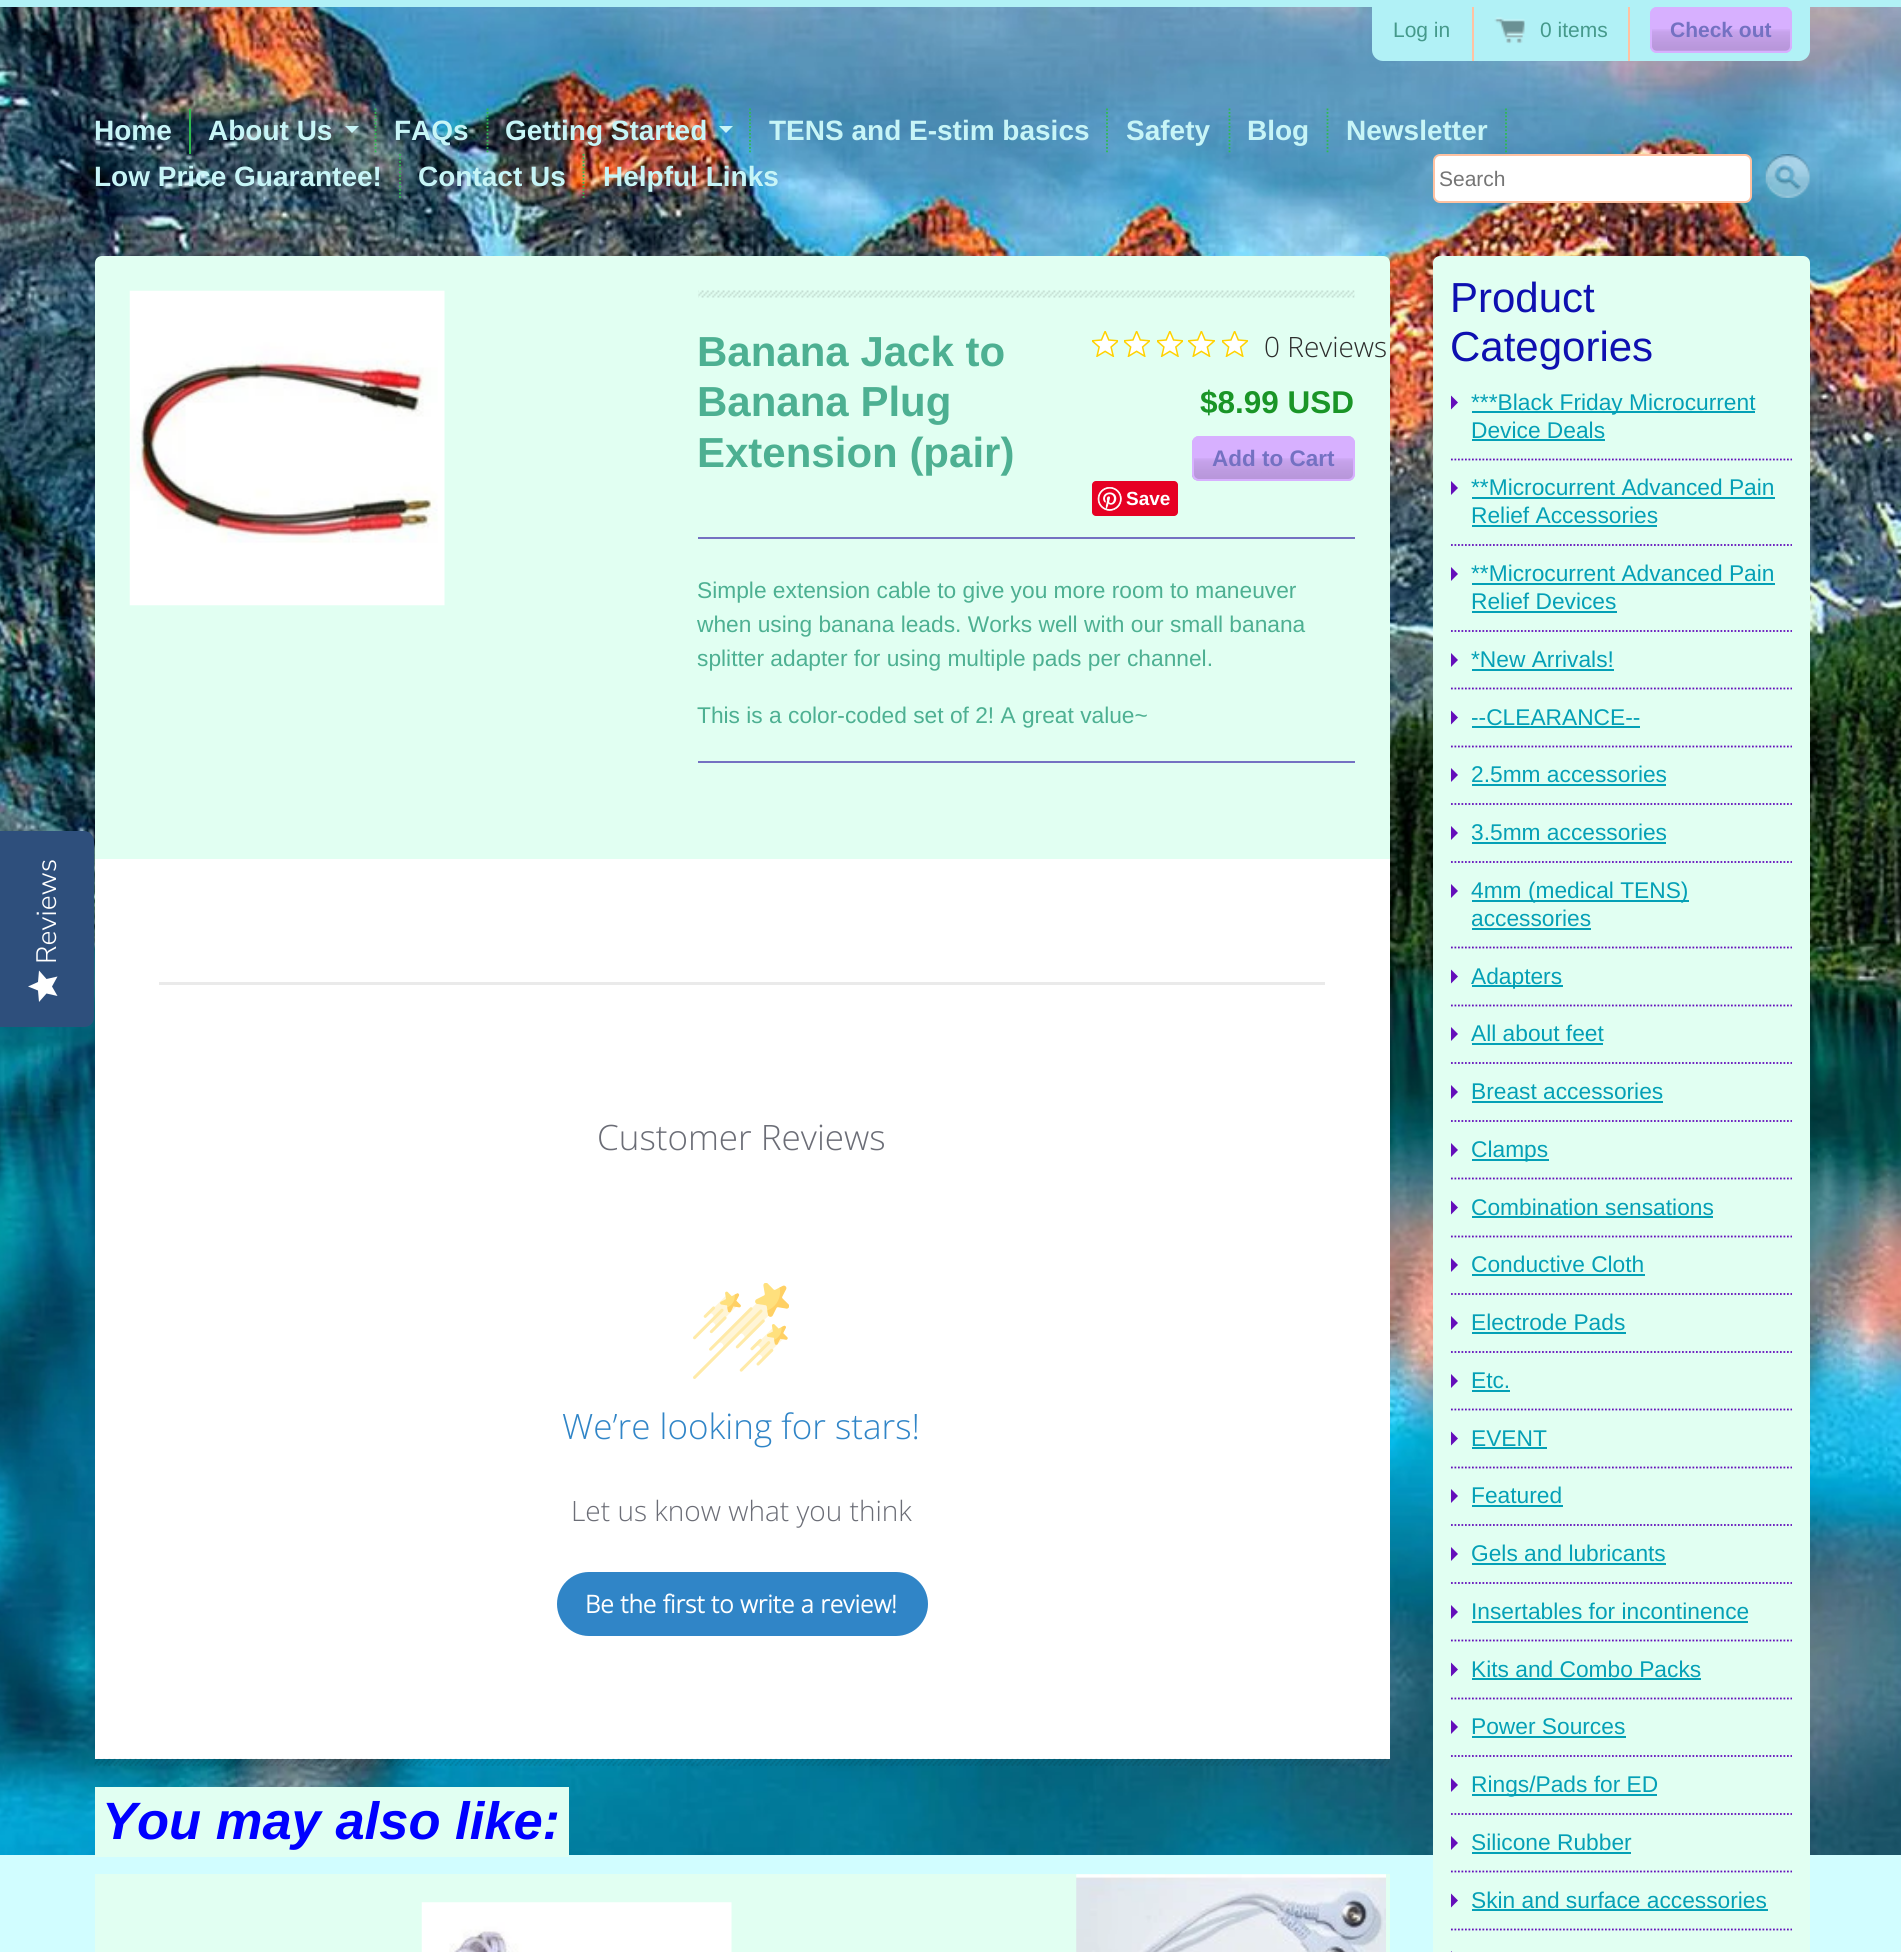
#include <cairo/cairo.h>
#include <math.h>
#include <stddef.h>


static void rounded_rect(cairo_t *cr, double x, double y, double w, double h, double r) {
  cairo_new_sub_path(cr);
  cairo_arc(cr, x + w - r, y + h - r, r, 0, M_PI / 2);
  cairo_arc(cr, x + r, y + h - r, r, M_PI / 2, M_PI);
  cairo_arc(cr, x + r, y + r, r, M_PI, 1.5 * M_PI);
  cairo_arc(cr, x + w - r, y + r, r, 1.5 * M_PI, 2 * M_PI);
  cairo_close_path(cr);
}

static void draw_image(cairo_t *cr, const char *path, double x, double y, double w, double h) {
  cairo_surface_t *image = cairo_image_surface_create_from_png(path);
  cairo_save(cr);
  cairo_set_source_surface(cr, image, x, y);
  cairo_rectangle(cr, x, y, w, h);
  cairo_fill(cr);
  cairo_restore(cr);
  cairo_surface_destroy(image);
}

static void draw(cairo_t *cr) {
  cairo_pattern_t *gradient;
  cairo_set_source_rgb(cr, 209 / 255.0, 253 / 255.0, 1);
  cairo_paint(cr);
  draw_image(cr, "images/1.png", 0, 7, 1901, 1848);
  cairo_set_source_rgb(cr, 177 / 255.0, 241 / 255.0, 246 / 255.0);
  cairo_rectangle(cr, 0, 0, 1901, 7);
  cairo_fill(cr);
  cairo_set_source_rgb(cr, 46 / 255.0, 79 / 255.0, 124 / 255.0);
  cairo_new_path(cr);
  cairo_move_to(cr, 0, 1027);
  cairo_line_to(cr, 0, 831);
  cairo_line_to(cr, 84, 831);
  cairo_curve_to(cr, 90, 831, 94, 836, 94, 842);
  cairo_line_to(cr, 94, 1017);
  cairo_curve_to(cr, 94, 1023, 90, 1027, 84, 1027);
  cairo_close_path(cr);
  cairo_fill(cr);
  gradient = cairo_pattern_create_linear(28, 1002, 28, 971);
  cairo_pattern_add_color_stop_rgba(gradient, 1, 1, 1, 1, 1);
  cairo_pattern_add_color_stop_rgba(gradient, 1, 234 / 255.0, 234 / 255.0, 234 / 255.0, 1);
  cairo_set_source(cr, gradient);
  cairo_pattern_destroy(gradient);
  cairo_new_path(cr);
  cairo_move_to(cr, 52, 986.5);
  cairo_line_to(cr, 57.5, 976.5);
  cairo_line_to(cr, 46.5, 979);
  cairo_line_to(cr, 39, 970.5);
  cairo_line_to(cr, 38, 982);
  cairo_line_to(cr, 28, 986.5);
  cairo_line_to(cr, 38, 990.5);
  cairo_line_to(cr, 39, 1002);
  cairo_line_to(cr, 46.5, 993.5);
  cairo_line_to(cr, 57.5, 996);
  cairo_close_path(cr);
  cairo_fill(cr);
  cairo_set_source_rgb(cr, 177 / 255.0, 241 / 255.0, 246 / 255.0);
  cairo_new_path(cr);
  cairo_move_to(cr, 1372, 7);
  cairo_line_to(cr, 1810, 7);
  cairo_line_to(cr, 1810, 50);
  cairo_curve_to(cr, 1810, 56, 1805, 61, 1799, 61);
  cairo_line_to(cr, 1383, 61);
  cairo_curve_to(cr, 1377, 61, 1372, 56, 1372, 50);
  cairo_close_path(cr);
  cairo_fill(cr);
  cairo_set_source_rgb(cr, 1, 194 / 255.0, 162 / 255.0);
  cairo_rectangle(cr, 1472, 7, 2, 54);
  cairo_fill(cr);
  cairo_rectangle(cr, 1628, 7, 2, 54);
  cairo_fill(cr);
  draw_image(cr, "images/2.png", 1494, 17, 31, 27);
  cairo_set_source_rgb(cr, 215 / 255.0, 176 / 255.0, 1);
  rounded_rect(cr, 1650, 7, 142, 46, 7);
  cairo_fill(cr);
  draw_image(cr, "images/3.png", 1650, 29, 142, 22);
  rounded_rect(cr, 1651, 8, 140, 44, 6);
  cairo_stroke(cr);
  cairo_set_source_rgb(cr, 45 / 255.0, 186 / 255.0, 79 / 255.0);
  cairo_rectangle(cr, 189, 109, 2, 45);
  cairo_fill(cr);
  cairo_new_path(cr);
  cairo_move_to(cr, 375.5, 108.5);
  cairo_line_to(cr, 375.5, 154);
  cairo_set_line_width(cr, 1.8);
  cairo_set_dash(cr, (double[]){1.75, 1.75}, 2, 0);
  cairo_stroke(cr);
  cairo_set_source_rgb(cr, 199 / 255.0, 245 / 255.0, 247 / 255.0);
  cairo_new_path(cr);
  cairo_move_to(cr, 345, 126);
  cairo_line_to(cr, 359, 126);
  cairo_line_to(cr, 352, 133);
  cairo_close_path(cr);
  cairo_fill(cr);
  cairo_new_path(cr);
  cairo_move_to(cr, 487.5, 108.5);
  cairo_line_to(cr, 487.5, 154);
  cairo_set_source_rgb(cr, 45 / 255.0, 186 / 255.0, 79 / 255.0);
  cairo_stroke(cr);
  cairo_new_path(cr);
  cairo_move_to(cr, 750, 108.5);
  cairo_line_to(cr, 750, 154);
  cairo_stroke(cr);
  cairo_set_source_rgb(cr, 199 / 255.0, 245 / 255.0, 247 / 255.0);
  cairo_new_path(cr);
  cairo_move_to(cr, 719, 126);
  cairo_line_to(cr, 733, 126);
  cairo_line_to(cr, 726, 133);
  cairo_close_path(cr);
  cairo_fill(cr);
  cairo_new_path(cr);
  cairo_move_to(cr, 1107, 108.5);
  cairo_line_to(cr, 1107, 154);
  cairo_set_source_rgb(cr, 45 / 255.0, 186 / 255.0, 79 / 255.0);
  cairo_stroke(cr);
  cairo_new_path(cr);
  cairo_move_to(cr, 1229.5, 108.5);
  cairo_line_to(cr, 1229.5, 154);
  cairo_stroke(cr);
  cairo_new_path(cr);
  cairo_move_to(cr, 1327.5, 108.5);
  cairo_line_to(cr, 1327.5, 154);
  cairo_stroke(cr);
  cairo_new_path(cr);
  cairo_move_to(cr, 1506, 108.5);
  cairo_line_to(cr, 1506, 154);
  cairo_stroke(cr);
  cairo_new_path(cr);
  cairo_move_to(cr, 400, 154);
  cairo_line_to(cr, 400, 199.5);
  cairo_stroke(cr);
  cairo_new_path(cr);
  cairo_move_to(cr, 583.5, 154);
  cairo_line_to(cr, 583.5, 199.5);
  cairo_stroke(cr);
  cairo_set_source_rgb(cr, 1, 1, 1);
  rounded_rect(cr, 1434, 155, 317, 47, 6);
  cairo_fill_preserve(cr);
  cairo_set_source_rgb(cr, 1, 194 / 255.0, 162 / 255.0);
  cairo_set_line_width(cr, 2);
  cairo_set_dash(cr, NULL, 0, 0);
  cairo_stroke(cr);
  draw_image(cr, "images/4.png", 1765, 154, 45, 44);
  cairo_set_source_rgb(cr, 225 / 255.0, 1, 242 / 255.0);
  cairo_new_path(cr);
  cairo_move_to(cr, 102, 256);
  cairo_line_to(cr, 1383, 256);
  cairo_curve_to(cr, 1387, 256, 1390, 259, 1390, 263);
  cairo_line_to(cr, 1390, 859);
  cairo_line_to(cr, 95, 859);
  cairo_line_to(cr, 95, 263);
  cairo_curve_to(cr, 95, 259, 98, 256, 102, 256);
  cairo_close_path(cr);
  cairo_fill(cr);
  draw_image(cr, "images/5.png", 129, 290, 316, 316);
  draw_image(cr, "images/6.png", 698, 290, 657, 8);
  cairo_set_source_rgb(cr, 116 / 255.0, 113 / 255.0, 194 / 255.0);
  cairo_rectangle(cr, 698, 537, 657, 2);
  cairo_fill(cr);
  draw_image(cr, "images/7.png", 1092, 331, 26, 26);
  draw_image(cr, "images/8.png", 1124, 331, 26, 26);
  draw_image(cr, "images/9.png", 1157, 331, 26, 26);
  draw_image(cr, "images/10.png", 1188, 331, 27, 26);
  draw_image(cr, "images/8.png", 1222, 331, 26, 26);
  cairo_set_source_rgb(cr, 215 / 255.0, 176 / 255.0, 1);
  rounded_rect(cr, 1192, 436, 163, 45, 7);
  cairo_fill(cr);
  draw_image(cr, "images/11.png", 1192, 458, 162, 22);
  rounded_rect(cr, 1193, 437, 161, 43, 6);
  cairo_stroke(cr);
  cairo_set_source_rgb(cr, 230 / 255.0, 0, 35 / 255.0);
  rounded_rect(cr, 1092, 481, 86, 35, 4);
  cairo_fill(cr);
  draw_image(cr, "images/12.png", 1097, 487, 25, 24);
  cairo_set_source_rgb(cr, 116 / 255.0, 113 / 255.0, 194 / 255.0);
  cairo_rectangle(cr, 698, 761, 657, 2);
  cairo_fill(cr);
  cairo_set_source_rgb(cr, 1, 1, 1);
  cairo_rectangle(cr, 95, 859, 1295, 900);
  cairo_fill(cr);
  cairo_set_source_rgb(cr, 234 / 255.0, 234 / 255.0, 234 / 255.0);
  cairo_rectangle(cr, 159, 982, 1166, 3);
  cairo_fill(cr);
  draw_image(cr, "images/13.png", 693, 1283, 96, 96);
  cairo_set_source_rgb(cr, 48 / 255.0, 133 / 255.0, 199 / 255.0);
  rounded_rect(cr, 557, 1572, 371, 64, 32);
  cairo_fill(cr);
  draw_image(cr, "images/14.png", 94, 1758, 1296, 8);
  cairo_set_source_rgb(cr, 225 / 255.0, 1, 242 / 255.0);
  cairo_rectangle(cr, 95, 1787, 474, 70);
  cairo_fill(cr);
  cairo_rectangle(cr, 95, 1874, 1295, 78);
  cairo_fill(cr);
  draw_image(cr, "images/15.png", 421, 1902, 311, 50);
  draw_image(cr, "images/16.png", 1076, 1874, 310, 78);
  rounded_rect(cr, 1433, 256, 377, 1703, 7);
  cairo_fill(cr);
  cairo_set_source_rgb(cr, 100 / 255.0, 15 / 255.0, 186 / 255.0);
  cairo_new_path(cr);
  cairo_move_to(cr, 1451, 409.5);
  cairo_line_to(cr, 1451, 395.5);
  cairo_line_to(cr, 1458, 402.5);
  cairo_close_path(cr);
  cairo_fill(cr);
  cairo_set_source_rgb(cr, 4 / 255.0, 160 / 255.0, 182 / 255.0);
  cairo_rectangle(cr, 1472, 411, 283, 2);
  cairo_fill(cr);
  cairo_rectangle(cr, 1472, 439, 133, 2);
  cairo_fill(cr);
  cairo_new_path(cr);
  cairo_move_to(cr, 1451, 459.5);
  cairo_line_to(cr, 1792, 459.5);
  cairo_set_source_rgb(cr, 100 / 255.0, 15 / 255.0, 186 / 255.0);
  cairo_set_line_width(cr, 1.8);
  cairo_set_dash(cr, (double[]){1.75, 1.75}, 2, 0);
  cairo_stroke(cr);
  cairo_new_path(cr);
  cairo_move_to(cr, 1451, 495);
  cairo_line_to(cr, 1451, 481);
  cairo_line_to(cr, 1458, 488);
  cairo_close_path(cr);
  cairo_fill(cr);
  cairo_set_source_rgb(cr, 4 / 255.0, 160 / 255.0, 182 / 255.0);
  cairo_rectangle(cr, 1472, 497, 303, 2);
  cairo_fill(cr);
  cairo_rectangle(cr, 1472, 525, 185, 2);
  cairo_fill(cr);
  cairo_new_path(cr);
  cairo_move_to(cr, 1451, 545);
  cairo_line_to(cr, 1792, 545);
  cairo_set_source_rgb(cr, 100 / 255.0, 15 / 255.0, 186 / 255.0);
  cairo_stroke(cr);
  cairo_new_path(cr);
  cairo_move_to(cr, 1451, 581);
  cairo_line_to(cr, 1451, 567);
  cairo_line_to(cr, 1458, 574);
  cairo_close_path(cr);
  cairo_fill(cr);
  cairo_set_source_rgb(cr, 4 / 255.0, 160 / 255.0, 182 / 255.0);
  cairo_rectangle(cr, 1472, 583, 303, 2);
  cairo_fill(cr);
  cairo_rectangle(cr, 1472, 611, 145, 2);
  cairo_fill(cr);
  cairo_new_path(cr);
  cairo_move_to(cr, 1451, 631);
  cairo_line_to(cr, 1792, 631);
  cairo_set_source_rgb(cr, 100 / 255.0, 15 / 255.0, 186 / 255.0);
  cairo_stroke(cr);
  cairo_new_path(cr);
  cairo_move_to(cr, 1451, 667);
  cairo_line_to(cr, 1451, 653);
  cairo_line_to(cr, 1458, 660);
  cairo_close_path(cr);
  cairo_fill(cr);
  cairo_set_source_rgb(cr, 4 / 255.0, 160 / 255.0, 182 / 255.0);
  cairo_rectangle(cr, 1472, 669, 142, 2);
  cairo_fill(cr);
  cairo_new_path(cr);
  cairo_move_to(cr, 1451, 688.5);
  cairo_line_to(cr, 1792, 688.5);
  cairo_set_source_rgb(cr, 100 / 255.0, 15 / 255.0, 186 / 255.0);
  cairo_stroke(cr);
  cairo_new_path(cr);
  cairo_move_to(cr, 1451, 724.5);
  cairo_line_to(cr, 1451, 710.5);
  cairo_line_to(cr, 1458, 717.5);
  cairo_close_path(cr);
  cairo_fill(cr);
  cairo_set_source_rgb(cr, 4 / 255.0, 160 / 255.0, 182 / 255.0);
  cairo_rectangle(cr, 1472, 726, 168, 2);
  cairo_fill(cr);
  cairo_new_path(cr);
  cairo_move_to(cr, 1451, 746.5);
  cairo_line_to(cr, 1792, 746.5);
  cairo_set_source_rgb(cr, 100 / 255.0, 15 / 255.0, 186 / 255.0);
  cairo_stroke(cr);
  cairo_new_path(cr);
  cairo_move_to(cr, 1451, 782);
  cairo_line_to(cr, 1451, 768);
  cairo_line_to(cr, 1458, 775);
  cairo_close_path(cr);
  cairo_fill(cr);
  cairo_set_source_rgb(cr, 4 / 255.0, 160 / 255.0, 182 / 255.0);
  cairo_rectangle(cr, 1472, 784, 194, 2);
  cairo_fill(cr);
  cairo_new_path(cr);
  cairo_move_to(cr, 1451, 804);
  cairo_line_to(cr, 1792, 804);
  cairo_set_source_rgb(cr, 100 / 255.0, 15 / 255.0, 186 / 255.0);
  cairo_stroke(cr);
  cairo_new_path(cr);
  cairo_move_to(cr, 1451, 840);
  cairo_line_to(cr, 1451, 826);
  cairo_line_to(cr, 1458, 833);
  cairo_close_path(cr);
  cairo_fill(cr);
  cairo_set_source_rgb(cr, 4 / 255.0, 160 / 255.0, 182 / 255.0);
  cairo_rectangle(cr, 1472, 842, 194, 2);
  cairo_fill(cr);
  cairo_new_path(cr);
  cairo_move_to(cr, 1451, 862);
  cairo_line_to(cr, 1792, 862);
  cairo_set_source_rgb(cr, 100 / 255.0, 15 / 255.0, 186 / 255.0);
  cairo_stroke(cr);
  cairo_new_path(cr);
  cairo_move_to(cr, 1451, 898);
  cairo_line_to(cr, 1451, 884);
  cairo_line_to(cr, 1458, 891);
  cairo_close_path(cr);
  cairo_fill(cr);
  cairo_set_source_rgb(cr, 4 / 255.0, 160 / 255.0, 182 / 255.0);
  cairo_rectangle(cr, 1472, 900, 217, 2);
  cairo_fill(cr);
  cairo_rectangle(cr, 1472, 928, 119, 2);
  cairo_fill(cr);
  cairo_new_path(cr);
  cairo_move_to(cr, 1451, 947.5);
  cairo_line_to(cr, 1792, 947.5);
  cairo_set_source_rgb(cr, 100 / 255.0, 15 / 255.0, 186 / 255.0);
  cairo_stroke(cr);
  cairo_new_path(cr);
  cairo_move_to(cr, 1451, 983.5);
  cairo_line_to(cr, 1451, 969.5);
  cairo_line_to(cr, 1458, 976.5);
  cairo_close_path(cr);
  cairo_fill(cr);
  cairo_set_source_rgb(cr, 4 / 255.0, 160 / 255.0, 182 / 255.0);
  cairo_rectangle(cr, 1472, 985, 91, 2);
  cairo_fill(cr);
  cairo_new_path(cr);
  cairo_move_to(cr, 1451, 1005.5);
  cairo_line_to(cr, 1792, 1005.5);
  cairo_set_source_rgb(cr, 100 / 255.0, 15 / 255.0, 186 / 255.0);
  cairo_stroke(cr);
  cairo_new_path(cr);
  cairo_move_to(cr, 1451, 1041);
  cairo_line_to(cr, 1451, 1027);
  cairo_line_to(cr, 1458, 1034);
  cairo_close_path(cr);
  cairo_fill(cr);
  cairo_set_source_rgb(cr, 4 / 255.0, 160 / 255.0, 182 / 255.0);
  cairo_rectangle(cr, 1472, 1043, 131, 2);
  cairo_fill(cr);
  cairo_new_path(cr);
  cairo_move_to(cr, 1451, 1063);
  cairo_line_to(cr, 1792, 1063);
  cairo_set_source_rgb(cr, 100 / 255.0, 15 / 255.0, 186 / 255.0);
  cairo_stroke(cr);
  cairo_new_path(cr);
  cairo_move_to(cr, 1451, 1099);
  cairo_line_to(cr, 1451, 1085);
  cairo_line_to(cr, 1458, 1092);
  cairo_close_path(cr);
  cairo_fill(cr);
  cairo_set_source_rgb(cr, 4 / 255.0, 160 / 255.0, 182 / 255.0);
  cairo_rectangle(cr, 1472, 1101, 191, 2);
  cairo_fill(cr);
  cairo_new_path(cr);
  cairo_move_to(cr, 1451, 1121);
  cairo_line_to(cr, 1792, 1121);
  cairo_set_source_rgb(cr, 100 / 255.0, 15 / 255.0, 186 / 255.0);
  cairo_stroke(cr);
  cairo_new_path(cr);
  cairo_move_to(cr, 1451, 1157);
  cairo_line_to(cr, 1451, 1143);
  cairo_line_to(cr, 1458, 1150);
  cairo_close_path(cr);
  cairo_fill(cr);
  cairo_set_source_rgb(cr, 4 / 255.0, 160 / 255.0, 182 / 255.0);
  cairo_rectangle(cr, 1472, 1159, 77, 2);
  cairo_fill(cr);
  cairo_new_path(cr);
  cairo_move_to(cr, 1451, 1178.5);
  cairo_line_to(cr, 1792, 1178.5);
  cairo_set_source_rgb(cr, 100 / 255.0, 15 / 255.0, 186 / 255.0);
  cairo_stroke(cr);
  cairo_new_path(cr);
  cairo_move_to(cr, 1451, 1214.5);
  cairo_line_to(cr, 1451, 1200.5);
  cairo_line_to(cr, 1458, 1207.5);
  cairo_close_path(cr);
  cairo_fill(cr);
  cairo_set_source_rgb(cr, 4 / 255.0, 160 / 255.0, 182 / 255.0);
  cairo_rectangle(cr, 1472, 1216, 241, 2);
  cairo_fill(cr);
  cairo_new_path(cr);
  cairo_move_to(cr, 1451, 1236.5);
  cairo_line_to(cr, 1792, 1236.5);
  cairo_set_source_rgb(cr, 100 / 255.0, 15 / 255.0, 186 / 255.0);
  cairo_stroke(cr);
  cairo_new_path(cr);
  cairo_move_to(cr, 1451, 1272);
  cairo_line_to(cr, 1451, 1258);
  cairo_line_to(cr, 1458, 1265);
  cairo_close_path(cr);
  cairo_fill(cr);
  cairo_set_source_rgb(cr, 4 / 255.0, 160 / 255.0, 182 / 255.0);
  cairo_rectangle(cr, 1472, 1274, 173, 2);
  cairo_fill(cr);
  cairo_new_path(cr);
  cairo_move_to(cr, 1451, 1294);
  cairo_line_to(cr, 1792, 1294);
  cairo_set_source_rgb(cr, 100 / 255.0, 15 / 255.0, 186 / 255.0);
  cairo_stroke(cr);
  cairo_new_path(cr);
  cairo_move_to(cr, 1451, 1330);
  cairo_line_to(cr, 1451, 1316);
  cairo_line_to(cr, 1458, 1323);
  cairo_close_path(cr);
  cairo_fill(cr);
  cairo_set_source_rgb(cr, 4 / 255.0, 160 / 255.0, 182 / 255.0);
  cairo_rectangle(cr, 1472, 1332, 154, 2);
  cairo_fill(cr);
  cairo_new_path(cr);
  cairo_move_to(cr, 1451, 1352);
  cairo_line_to(cr, 1792, 1352);
  cairo_set_source_rgb(cr, 100 / 255.0, 15 / 255.0, 186 / 255.0);
  cairo_stroke(cr);
  cairo_new_path(cr);
  cairo_move_to(cr, 1451, 1388);
  cairo_line_to(cr, 1451, 1374);
  cairo_line_to(cr, 1458, 1381);
  cairo_close_path(cr);
  cairo_fill(cr);
  cairo_set_source_rgb(cr, 4 / 255.0, 160 / 255.0, 182 / 255.0);
  cairo_rectangle(cr, 1472, 1390, 38, 2);
  cairo_fill(cr);
  cairo_new_path(cr);
  cairo_move_to(cr, 1451, 1409.5);
  cairo_line_to(cr, 1792, 1409.5);
  cairo_set_source_rgb(cr, 100 / 255.0, 15 / 255.0, 186 / 255.0);
  cairo_stroke(cr);
  cairo_new_path(cr);
  cairo_move_to(cr, 1451, 1445.5);
  cairo_line_to(cr, 1451, 1431.5);
  cairo_line_to(cr, 1458, 1438.5);
  cairo_close_path(cr);
  cairo_fill(cr);
  cairo_set_source_rgb(cr, 4 / 255.0, 160 / 255.0, 182 / 255.0);
  cairo_rectangle(cr, 1472, 1447, 75, 2);
  cairo_fill(cr);
  cairo_new_path(cr);
  cairo_move_to(cr, 1451, 1467.5);
  cairo_line_to(cr, 1792, 1467.5);
  cairo_set_source_rgb(cr, 100 / 255.0, 15 / 255.0, 186 / 255.0);
  cairo_stroke(cr);
  cairo_new_path(cr);
  cairo_move_to(cr, 1451, 1503);
  cairo_line_to(cr, 1451, 1489);
  cairo_line_to(cr, 1458, 1496);
  cairo_close_path(cr);
  cairo_fill(cr);
  cairo_set_source_rgb(cr, 4 / 255.0, 160 / 255.0, 182 / 255.0);
  cairo_rectangle(cr, 1472, 1505, 91, 2);
  cairo_fill(cr);
  cairo_new_path(cr);
  cairo_move_to(cr, 1451, 1525);
  cairo_line_to(cr, 1792, 1525);
  cairo_set_source_rgb(cr, 100 / 255.0, 15 / 255.0, 186 / 255.0);
  cairo_stroke(cr);
  cairo_new_path(cr);
  cairo_move_to(cr, 1451, 1561);
  cairo_line_to(cr, 1451, 1547);
  cairo_line_to(cr, 1458, 1554);
  cairo_close_path(cr);
  cairo_fill(cr);
  cairo_set_source_rgb(cr, 4 / 255.0, 160 / 255.0, 182 / 255.0);
  cairo_rectangle(cr, 1472, 1563, 194, 2);
  cairo_fill(cr);
  cairo_new_path(cr);
  cairo_move_to(cr, 1451, 1583);
  cairo_line_to(cr, 1792, 1583);
  cairo_set_source_rgb(cr, 100 / 255.0, 15 / 255.0, 186 / 255.0);
  cairo_stroke(cr);
  cairo_new_path(cr);
  cairo_move_to(cr, 1451, 1619);
  cairo_line_to(cr, 1451, 1605);
  cairo_line_to(cr, 1458, 1612);
  cairo_close_path(cr);
  cairo_fill(cr);
  cairo_set_source_rgb(cr, 4 / 255.0, 160 / 255.0, 182 / 255.0);
  cairo_rectangle(cr, 1472, 1621, 276, 2);
  cairo_fill(cr);
  cairo_new_path(cr);
  cairo_move_to(cr, 1451, 1640.5);
  cairo_line_to(cr, 1792, 1640.5);
  cairo_set_source_rgb(cr, 100 / 255.0, 15 / 255.0, 186 / 255.0);
  cairo_stroke(cr);
  cairo_new_path(cr);
  cairo_move_to(cr, 1451, 1676.5);
  cairo_line_to(cr, 1451, 1662.5);
  cairo_line_to(cr, 1458, 1669.5);
  cairo_close_path(cr);
  cairo_fill(cr);
  cairo_set_source_rgb(cr, 4 / 255.0, 160 / 255.0, 182 / 255.0);
  cairo_rectangle(cr, 1472, 1678, 229, 2);
  cairo_fill(cr);
  cairo_new_path(cr);
  cairo_move_to(cr, 1451, 1698.5);
  cairo_line_to(cr, 1792, 1698.5);
  cairo_set_source_rgb(cr, 100 / 255.0, 15 / 255.0, 186 / 255.0);
  cairo_stroke(cr);
  cairo_new_path(cr);
  cairo_move_to(cr, 1451, 1734);
  cairo_line_to(cr, 1451, 1720);
  cairo_line_to(cr, 1458, 1727);
  cairo_close_path(cr);
  cairo_fill(cr);
  cairo_set_source_rgb(cr, 4 / 255.0, 160 / 255.0, 182 / 255.0);
  cairo_rectangle(cr, 1472, 1736, 154, 2);
  cairo_fill(cr);
  cairo_new_path(cr);
  cairo_move_to(cr, 1451, 1756);
  cairo_line_to(cr, 1792, 1756);
  cairo_set_source_rgb(cr, 100 / 255.0, 15 / 255.0, 186 / 255.0);
  cairo_stroke(cr);
  cairo_new_path(cr);
  cairo_move_to(cr, 1451, 1792);
  cairo_line_to(cr, 1451, 1778);
  cairo_line_to(cr, 1458, 1785);
  cairo_close_path(cr);
  cairo_fill(cr);
  cairo_set_source_rgb(cr, 4 / 255.0, 160 / 255.0, 182 / 255.0);
  cairo_rectangle(cr, 1472, 1794, 185, 2);
  cairo_fill(cr);
  cairo_new_path(cr);
  cairo_move_to(cr, 1451, 1814);
  cairo_line_to(cr, 1792, 1814);
  cairo_set_source_rgb(cr, 100 / 255.0, 15 / 255.0, 186 / 255.0);
  cairo_stroke(cr);
  cairo_new_path(cr);
  cairo_move_to(cr, 1451, 1850);
  cairo_line_to(cr, 1451, 1836);
  cairo_line_to(cr, 1458, 1843);
  cairo_close_path(cr);
  cairo_fill(cr);
  cairo_set_source_rgb(cr, 4 / 255.0, 160 / 255.0, 182 / 255.0);
  cairo_rectangle(cr, 1472, 1852, 159, 2);
  cairo_fill(cr);
  cairo_new_path(cr);
  cairo_move_to(cr, 1451, 1871.5);
  cairo_line_to(cr, 1792, 1871.5);
  cairo_set_source_rgb(cr, 100 / 255.0, 15 / 255.0, 186 / 255.0);
  cairo_stroke(cr);
  cairo_new_path(cr);
  cairo_move_to(cr, 1451, 1929.5);
  cairo_line_to(cr, 1792, 1929.5);
  cairo_stroke(cr);
  cairo_new_path(cr);
  cairo_move_to(cr, 1451, 1907.5);
  cairo_line_to(cr, 1451, 1893.5);
  cairo_line_to(cr, 1458, 1900.5);
  cairo_close_path(cr);
  cairo_move_to(cr, 1451, 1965);
  cairo_line_to(cr, 1451, 1951);
  cairo_line_to(cr, 1458, 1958);
  cairo_close_path(cr);
  cairo_fill(cr);
  cairo_set_source_rgb(cr, 4 / 255.0, 160 / 255.0, 182 / 255.0);
  cairo_rectangle(cr, 1472, 1909, 296, 2);
  cairo_fill(cr);
  cairo_select_font_face(cr, "Nunito Sans Light", CAIRO_FONT_SLANT_NORMAL, CAIRO_FONT_WEIGHT_NORMAL);
  cairo_set_font_size(cr, 28);
  cairo_set_source_rgb(cr, 1, 1, 1);
  cairo_save(cr);
  cairo_translate(cr, 56, 964);
  cairo_rotate(cr, -90 * M_PI / 180);
  cairo_move_to(cr, 0, 0);
  cairo_show_text(cr, "Reviews");
  cairo_restore(cr);
  cairo_select_font_face(cr, "Liberation Sans", CAIRO_FONT_SLANT_NORMAL, CAIRO_FONT_WEIGHT_NORMAL);
  cairo_set_font_size(cr, 21);
  cairo_set_source_rgb(cr, 69 / 255.0, 153 / 255.0, 139 / 255.0);
  cairo_move_to(cr, 1393, 37);
  cairo_show_text(cr, "Log in");
  cairo_move_to(cr, 1540, 37);
  cairo_show_text(cr, "0 items");
  cairo_select_font_face(cr, "Liberation Sans", CAIRO_FONT_SLANT_NORMAL, CAIRO_FONT_WEIGHT_BOLD);
  cairo_set_source_rgb(cr, 116 / 255.0, 113 / 255.0, 194 / 255.0);
  cairo_move_to(cr, 1670, 37);
  cairo_show_text(cr, "Check out");
  cairo_set_font_size(cr, 28);
  cairo_set_source_rgb(cr, 199 / 255.0, 245 / 255.0, 247 / 255.0);
  cairo_move_to(cr, 94, 140);
  cairo_show_text(cr, "Home");
  cairo_move_to(cr, 208, 140);
  cairo_show_text(cr, "About Us");
  cairo_move_to(cr, 394, 140);
  cairo_show_text(cr, "FAQs");
  cairo_move_to(cr, 505, 140);
  cairo_show_text(cr, "Getting Started");
  cairo_move_to(cr, 769, 140);
  cairo_show_text(cr, "TENS and E-stim basics");
  cairo_move_to(cr, 1126, 140);
  cairo_show_text(cr, "Safety");
  cairo_move_to(cr, 1247, 140);
  cairo_show_text(cr, "Blog");
  cairo_move_to(cr, 1346, 140);
  cairo_show_text(cr, "Newsletter");
  cairo_move_to(cr, 94, 186);
  cairo_show_text(cr, "Low Price Guarantee!");
  cairo_move_to(cr, 418, 186);
  cairo_show_text(cr, "Contact Us");
  cairo_move_to(cr, 603, 186);
  cairo_show_text(cr, "Helpful Links");
  cairo_select_font_face(cr, "Liberation Sans", CAIRO_FONT_SLANT_NORMAL, CAIRO_FONT_WEIGHT_NORMAL);
  cairo_set_font_size(cr, 21);
  cairo_set_source_rgb(cr, 117 / 255.0, 117 / 255.0, 117 / 255.0);
  cairo_move_to(cr, 1439, 186);
  cairo_show_text(cr, "Search");
  cairo_select_font_face(cr, "Liberation Sans", CAIRO_FONT_SLANT_NORMAL, CAIRO_FONT_WEIGHT_BOLD);
  cairo_set_font_size(cr, 42);
  cairo_set_source_rgb(cr, 77 / 255.0, 176 / 255.0, 146 / 255.0);
  cairo_move_to(cr, 697, 366);
  cairo_show_text(cr, "Banana Jack to");
  cairo_move_to(cr, 697, 416);
  cairo_show_text(cr, "Banana Plug");
  cairo_move_to(cr, 697, 467);
  cairo_show_text(cr, "Extension (pair)");
  cairo_select_font_face(cr, "Open Sans Light", CAIRO_FONT_SLANT_NORMAL, CAIRO_FONT_WEIGHT_NORMAL);
  cairo_set_font_size(cr, 28);
  cairo_set_source_rgb(cr, 44 / 255.0, 44 / 255.0, 44 / 255.0);
  cairo_move_to(cr, 1264, 357);
  cairo_show_text(cr, "0 Reviews");
  cairo_select_font_face(cr, "Liberation Sans", CAIRO_FONT_SLANT_NORMAL, CAIRO_FONT_WEIGHT_BOLD);
  cairo_set_font_size(cr, 31.5);
  cairo_set_source_rgb(cr, 26 / 255.0, 149 / 255.0, 39 / 255.0);
  cairo_move_to(cr, 1200, 413);
  cairo_show_text(cr, "$8.99 USD");
  cairo_set_font_size(cr, 22.5);
  cairo_set_source_rgb(cr, 116 / 255.0, 113 / 255.0, 194 / 255.0);
  cairo_move_to(cr, 1212, 466);
  cairo_show_text(cr, "Add to Cart");
  cairo_set_font_size(cr, 19);
  cairo_set_source_rgb(cr, 1, 1, 1);
  cairo_move_to(cr, 1126, 505);
  cairo_show_text(cr, "Save");
  cairo_select_font_face(cr, "Liberation Sans", CAIRO_FONT_SLANT_NORMAL, CAIRO_FONT_WEIGHT_NORMAL);
  cairo_set_font_size(cr, 22.75);
  cairo_set_source_rgb(cr, 77 / 255.0, 176 / 255.0, 146 / 255.0);
  cairo_move_to(cr, 697, 598);
  cairo_show_text(cr, "Simple extension cable to give you more room to maneuver");
  cairo_move_to(cr, 697, 632);
  cairo_show_text(cr, "when using banana leads. Works well with our small banana");
  cairo_move_to(cr, 697, 666);
  cairo_show_text(cr, "splitter adapter for using multiple pads per channel.");
  cairo_move_to(cr, 697, 723);
  cairo_show_text(cr, "This is a color-coded set of 2! A great value~");
  cairo_select_font_face(cr, "Open Sans Light", CAIRO_FONT_SLANT_NORMAL, CAIRO_FONT_WEIGHT_NORMAL);
  cairo_set_font_size(cr, 35);
  cairo_set_source_rgb(cr, 107 / 255.0, 109 / 255.0, 118 / 255.0);
  cairo_move_to(cr, 597, 1150);
  cairo_show_text(cr, "Customer Reviews");
  cairo_set_source_rgb(cr, 48 / 255.0, 133 / 255.0, 199 / 255.0);
  cairo_move_to(cr, 562, 1439);
  cairo_show_text(cr, "We’re looking for stars!");
  cairo_set_font_size(cr, 28);
  cairo_set_source_rgb(cr, 107 / 255.0, 109 / 255.0, 118 / 255.0);
  cairo_move_to(cr, 571, 1521);
  cairo_show_text(cr, "Let us know what you think");
  cairo_select_font_face(cr, "Open Sans", CAIRO_FONT_SLANT_NORMAL, CAIRO_FONT_WEIGHT_BOLD);
  cairo_set_font_size(cr, 24.5);
  cairo_set_source_rgb(cr, 1, 1, 1);
  cairo_move_to(cr, 585, 1613);
  cairo_show_text(cr, "Be the first to write a review!");
  cairo_select_font_face(cr, "Liberation Sans", CAIRO_FONT_SLANT_ITALIC, CAIRO_FONT_WEIGHT_BOLD);
  cairo_set_font_size(cr, 52.5);
  cairo_set_source_rgb(cr, 0, 0, 1);
  cairo_move_to(cr, 102, 1839);
  cairo_show_text(cr, "You may also like:");
  cairo_select_font_face(cr, "Liberation Sans", CAIRO_FONT_SLANT_NORMAL, CAIRO_FONT_WEIGHT_NORMAL);
  cairo_set_font_size(cr, 42);
  cairo_set_source_rgb(cr, 14 / 255.0, 16 / 255.0, 176 / 255.0);
  cairo_move_to(cr, 1450, 312);
  cairo_show_text(cr, "Product");
  cairo_move_to(cr, 1450, 361);
  cairo_show_text(cr, "Categories");
  cairo_set_font_size(cr, 22.75);
  cairo_set_source_rgb(cr, 4 / 255.0, 160 / 255.0, 182 / 255.0);
  cairo_move_to(cr, 1471, 410);
  cairo_show_text(cr, "***Black Friday Microcurrent");
  cairo_move_to(cr, 1471, 438);
  cairo_show_text(cr, "Device Deals");
  cairo_move_to(cr, 1471, 495);
  cairo_show_text(cr, "**Microcurrent Advanced Pain");
  cairo_move_to(cr, 1471, 523);
  cairo_show_text(cr, "Relief Accessories");
  cairo_move_to(cr, 1471, 581);
  cairo_show_text(cr, "**Microcurrent Advanced Pain");
  cairo_move_to(cr, 1471, 609);
  cairo_show_text(cr, "Relief Devices");
  cairo_move_to(cr, 1471, 667);
  cairo_show_text(cr, "*New Arrivals!");
  cairo_move_to(cr, 1471, 725);
  cairo_show_text(cr, "--CLEARANCE--");
  cairo_move_to(cr, 1471, 782);
  cairo_show_text(cr, "2.5mm accessories");
  cairo_move_to(cr, 1471, 840);
  cairo_show_text(cr, "3.5mm accessories");
  cairo_move_to(cr, 1471, 898);
  cairo_show_text(cr, "4mm (medical TENS)");
  cairo_move_to(cr, 1471, 926);
  cairo_show_text(cr, "accessories");
  cairo_move_to(cr, 1471, 984);
  cairo_show_text(cr, "Adapters");
  cairo_move_to(cr, 1471, 1041);
  cairo_show_text(cr, "All about feet");
  cairo_move_to(cr, 1471, 1099);
  cairo_show_text(cr, "Breast accessories");
  cairo_move_to(cr, 1471, 1157);
  cairo_show_text(cr, "Clamps");
  cairo_move_to(cr, 1471, 1215);
  cairo_show_text(cr, "Combination sensations");
  cairo_move_to(cr, 1471, 1272);
  cairo_show_text(cr, "Conductive Cloth");
  cairo_move_to(cr, 1471, 1330);
  cairo_show_text(cr, "Electrode Pads");
  cairo_move_to(cr, 1471, 1388);
  cairo_show_text(cr, "Etc.");
  cairo_move_to(cr, 1471, 1446);
  cairo_show_text(cr, "EVENT");
  cairo_move_to(cr, 1471, 1503);
  cairo_show_text(cr, "Featured");
  cairo_move_to(cr, 1471, 1561);
  cairo_show_text(cr, "Gels and lubricants");
  cairo_move_to(cr, 1471, 1619);
  cairo_show_text(cr, "Insertables for incontinence");
  cairo_move_to(cr, 1471, 1677);
  cairo_show_text(cr, "Kits and Combo Packs");
  cairo_move_to(cr, 1471, 1734);
  cairo_show_text(cr, "Power Sources");
  cairo_move_to(cr, 1471, 1792);
  cairo_show_text(cr, "Rings/Pads for ED");
  cairo_move_to(cr, 1471, 1850);
  cairo_show_text(cr, "Silicone Rubber");
  cairo_move_to(cr, 1471, 1908);
  cairo_show_text(cr, "Skin and surface accessories");
}

int main(void) {
  cairo_surface_t *surface = cairo_image_surface_create(CAIRO_FORMAT_RGB24, 1901, 1952);
  cairo_t *cr = cairo_create(surface);
  cairo_font_options_t *options = cairo_font_options_create();
  cairo_font_options_set_hint_metrics(options, CAIRO_HINT_METRICS_OFF);
  cairo_font_options_set_hint_style(options, CAIRO_HINT_STYLE_NONE);
  cairo_set_font_options(cr, options);
  cairo_set_miter_limit(cr, 4);
  draw(cr);
  cairo_surface_write_to_png(surface, "out.png");
  cairo_font_options_destroy(options);
  cairo_destroy(cr);
  cairo_surface_destroy(surface);
  return 0;
}
